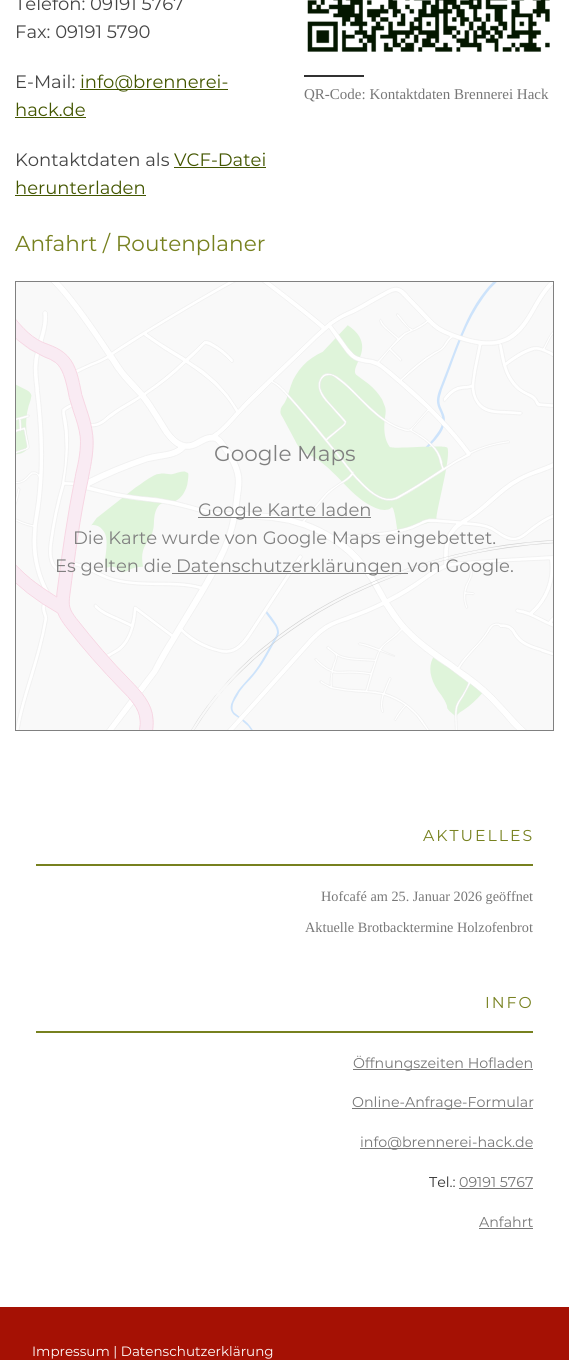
#include <cairo/cairo.h>
#include <math.h>
#include <stddef.h>


static void draw_spaced(cairo_t *cr, double x, double y, const char *s, double letter, double word) {
  cairo_move_to(cr, x, y);
  while (*s) {
    char ch[5] = {0};
    int n = 0;
    do ch[n++] = *s++; while ((*s & 0xC0) == 0x80);
    cairo_show_text(cr, ch);
    cairo_rel_move_to(cr, letter + word * (*ch == ' '), 0);
  }
}

static void draw_image(cairo_t *cr, const char *path, double x, double y, double w, double h) {
  cairo_surface_t *image = cairo_image_surface_create_from_png(path);
  cairo_save(cr);
  cairo_set_source_surface(cr, image, x, y);
  cairo_rectangle(cr, x, y, w, h);
  cairo_fill(cr);
  cairo_restore(cr);
  cairo_surface_destroy(image);
}

static void draw(cairo_t *cr) {
  cairo_set_source_rgb(cr, 1, 1, 1);
  cairo_paint(cr);
  cairo_set_source_rgb(cr, 67 / 255.0, 86 / 255.0, 0);
  cairo_rectangle(cr, 80, 89, 148, 1);
  cairo_fill(cr);
  cairo_rectangle(cr, 15, 117, 71, 1);
  cairo_fill(cr);
  draw_image(cr, "images/1.png", 307, 0, 243, 52);
  cairo_set_source_rgb(cr, 49 / 255.0, 49 / 255.0, 49 / 255.0);
  cairo_rectangle(cr, 304, 75, 60, 2);
  cairo_fill(cr);
  cairo_set_source_rgb(cr, 67 / 255.0, 86 / 255.0, 0);
  cairo_rectangle(cr, 174, 167, 92, 1);
  cairo_fill(cr);
  cairo_rectangle(cr, 15, 195, 131, 1);
  cairo_fill(cr);
  draw_image(cr, "images/2.png", 16, 282, 537, 448);
  cairo_rectangle(cr, 15.5, 281.5, 538, 449);
  cairo_set_source_rgb(cr, 128 / 255.0, 128 / 255.0, 128 / 255.0);
  cairo_set_line_width(cr, 1);
  cairo_stroke(cr);
  cairo_rectangle(cr, 198, 517, 173, 1);
  cairo_fill(cr);
  cairo_rectangle(cr, 172, 573, 236, 1);
  cairo_fill(cr);
  cairo_set_source_rgb(cr, 119 / 255.0, 129 / 255.0, 31 / 255.0);
  cairo_rectangle(cr, 36, 864, 497, 2);
  cairo_fill(cr);
  cairo_rectangle(cr, 36, 1031, 497, 2);
  cairo_fill(cr);
  cairo_set_source_rgb(cr, 119 / 255.0, 119 / 255.0, 119 / 255.0);
  cairo_rectangle(cr, 353, 1069, 180, 1);
  cairo_fill(cr);
  cairo_rectangle(cr, 352, 1108, 181, 1);
  cairo_fill(cr);
  cairo_rectangle(cr, 360, 1148, 173, 1);
  cairo_fill(cr);
  cairo_rectangle(cr, 459, 1188, 74, 1);
  cairo_fill(cr);
  cairo_rectangle(cr, 479, 1228, 54, 1);
  cairo_fill(cr);
  cairo_set_source_rgb(cr, 165 / 255.0, 17 / 255.0, 4 / 255.0);
  cairo_rectangle(cr, 0, 1307, 569, 53);
  cairo_fill(cr);
  cairo_select_font_face(cr, "Montserrat", CAIRO_FONT_SLANT_NORMAL, CAIRO_FONT_WEIGHT_NORMAL);
  cairo_set_font_size(cr, 18);
  cairo_set_source_rgb(cr, 68 / 255.0, 68 / 255.0, 68 / 255.0);
  cairo_move_to(cr, 15, 10);
  cairo_show_text(cr, "Telefon: 09191 5767");
  cairo_move_to(cr, 15, 38);
  cairo_show_text(cr, "Fax: 09191 5790");
  cairo_move_to(cr, 15, 88);
  cairo_show_text(cr, "E‑Mail:");
  cairo_set_source_rgb(cr, 67 / 255.0, 86 / 255.0, 0);
  cairo_move_to(cr, 80, 88);
  cairo_show_text(cr, "info@brennerei-");
  cairo_move_to(cr, 15, 116);
  cairo_show_text(cr, "hack.de");
  cairo_select_font_face(cr, "Liberation Serif", CAIRO_FONT_SLANT_NORMAL, CAIRO_FONT_WEIGHT_NORMAL);
  cairo_set_font_size(cr, 15);
  cairo_set_source_rgb(cr, 119 / 255.0, 119 / 255.0, 119 / 255.0);
  cairo_move_to(cr, 304, 99);
  cairo_show_text(cr, "QR-Code: Kontaktdaten Brennerei Hack");
  cairo_select_font_face(cr, "Montserrat", CAIRO_FONT_SLANT_NORMAL, CAIRO_FONT_WEIGHT_NORMAL);
  cairo_set_font_size(cr, 18);
  cairo_set_source_rgb(cr, 68 / 255.0, 68 / 255.0, 68 / 255.0);
  cairo_move_to(cr, 15, 166);
  cairo_show_text(cr, "Kontaktdaten als");
  cairo_set_source_rgb(cr, 67 / 255.0, 86 / 255.0, 0);
  cairo_move_to(cr, 174, 166);
  cairo_show_text(cr, "VCF-Datei");
  cairo_move_to(cr, 15, 194);
  cairo_show_text(cr, "herunterladen");
  cairo_set_font_size(cr, 21.6);
  cairo_set_source_rgb(cr, 119 / 255.0, 129 / 255.0, 31 / 255.0);
  cairo_move_to(cr, 15, 251);
  cairo_show_text(cr, "Anfahrt / Routenplaner");
  cairo_set_source_rgb(cr, 128 / 255.0, 128 / 255.0, 128 / 255.0);
  cairo_move_to(cr, 214, 461);
  cairo_show_text(cr, "Google Maps");
  cairo_set_font_size(cr, 18);
  cairo_move_to(cr, 198, 516);
  cairo_show_text(cr, "Google Karte laden");
  cairo_move_to(cr, 73, 544);
  cairo_show_text(cr, "Die Karte wurde von Google Maps eingebettet.");
  cairo_move_to(cr, 55, 572);
  cairo_show_text(cr, "Es gelten die");
  cairo_move_to(cr, 176, 572);
  cairo_show_text(cr, "Datenschutzerklärungen von Google.");
  cairo_set_font_size(cr, 15.75);
  cairo_set_source_rgb(cr, 119 / 255.0, 129 / 255.0, 31 / 255.0);
  draw_spaced(cr, 423, 841, "AKTUELLES", 2, 0);
  cairo_select_font_face(cr, "Liberation Serif", CAIRO_FONT_SLANT_NORMAL, CAIRO_FONT_WEIGHT_NORMAL);
  cairo_set_font_size(cr, 14.25);
  cairo_set_source_rgb(cr, 119 / 255.0, 119 / 255.0, 119 / 255.0);
  cairo_move_to(cr, 321, 901);
  cairo_show_text(cr, "Hofcafé am 25. Januar 2026 geöffnet");
  cairo_move_to(cr, 305, 932);
  cairo_show_text(cr, "Aktuelle Brotbacktermine Holzofenbrot");
  cairo_select_font_face(cr, "Montserrat", CAIRO_FONT_SLANT_NORMAL, CAIRO_FONT_WEIGHT_NORMAL);
  cairo_set_font_size(cr, 15.75);
  cairo_set_source_rgb(cr, 119 / 255.0, 129 / 255.0, 31 / 255.0);
  draw_spaced(cr, 485, 1008, "INFO", 2, 0);
  cairo_set_font_size(cr, 14.25);
  cairo_set_source_rgb(cr, 119 / 255.0, 119 / 255.0, 119 / 255.0);
  cairo_move_to(cr, 353, 1068);
  cairo_show_text(cr, "Öffnungszeiten Hofladen");
  cairo_move_to(cr, 352, 1107);
  cairo_show_text(cr, "Online-Anfrage-Formular");
  cairo_move_to(cr, 360, 1147);
  cairo_show_text(cr, "info@brennerei-hack.de");
  cairo_set_source_rgb(cr, 51 / 255.0, 51 / 255.0, 51 / 255.0);
  cairo_move_to(cr, 429, 1187);
  cairo_show_text(cr, "Tel.:");
  cairo_set_source_rgb(cr, 119 / 255.0, 119 / 255.0, 119 / 255.0);
  cairo_move_to(cr, 459, 1187);
  cairo_show_text(cr, "09191 5767");
  cairo_move_to(cr, 479, 1227);
  cairo_show_text(cr, "Anfahrt");
  cairo_set_font_size(cr, 13.5);
  cairo_set_source_rgb(cr, 1, 1, 1);
  cairo_move_to(cr, 32, 1356);
  cairo_show_text(cr, "Impressum | Datenschutzerklärung");
}

int main(void) {
  cairo_surface_t *surface = cairo_image_surface_create(CAIRO_FORMAT_RGB24, 569, 1360);
  cairo_t *cr = cairo_create(surface);
  cairo_font_options_t *options = cairo_font_options_create();
  cairo_font_options_set_hint_metrics(options, CAIRO_HINT_METRICS_OFF);
  cairo_font_options_set_hint_style(options, CAIRO_HINT_STYLE_NONE);
  cairo_set_font_options(cr, options);
  cairo_set_miter_limit(cr, 4);
  draw(cr);
  cairo_surface_write_to_png(surface, "out.png");
  cairo_font_options_destroy(options);
  cairo_destroy(cr);
  cairo_surface_destroy(surface);
  return 0;
}
